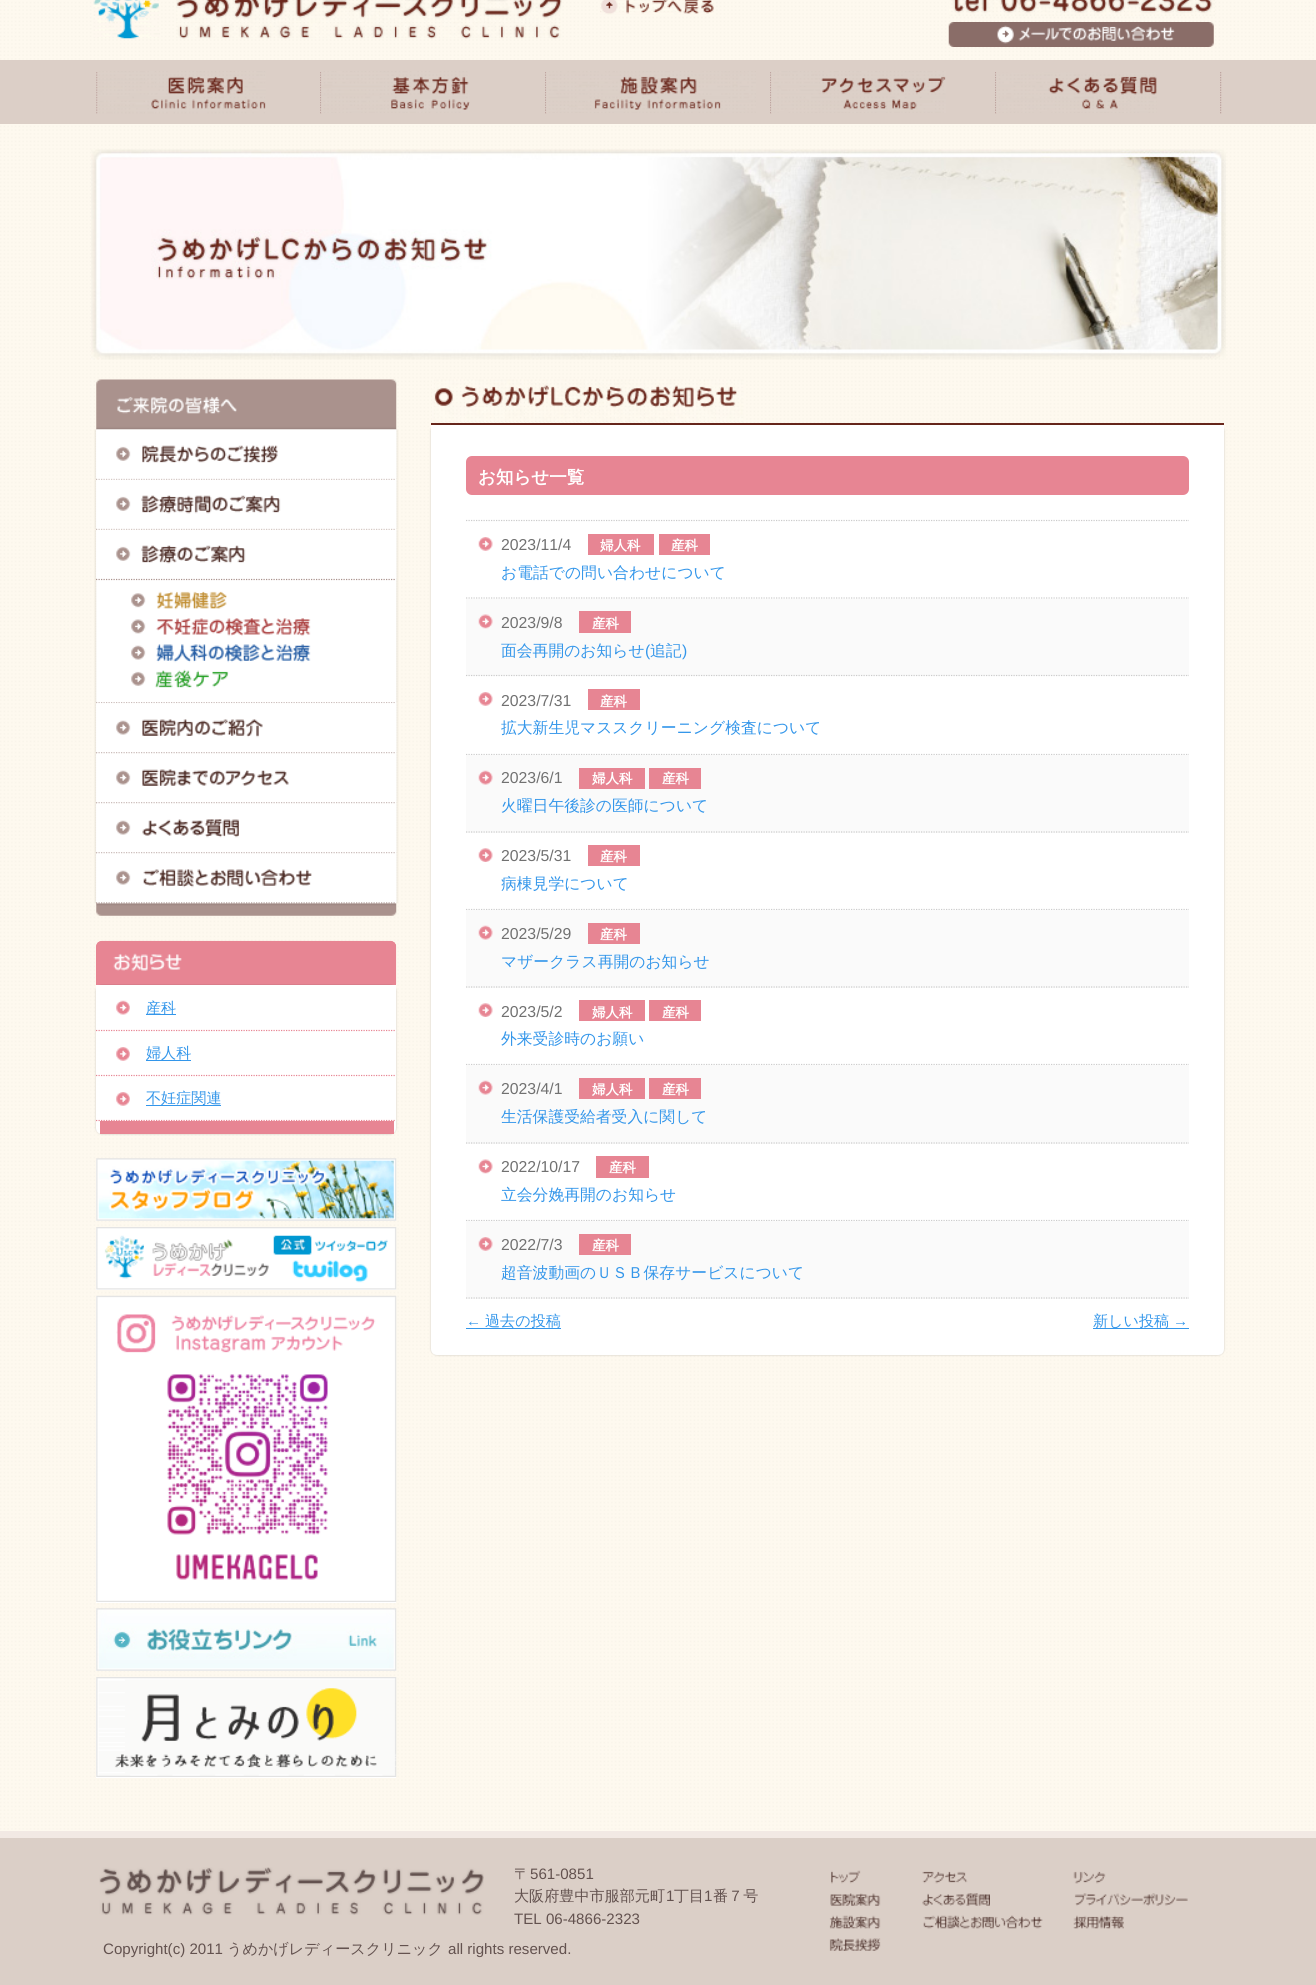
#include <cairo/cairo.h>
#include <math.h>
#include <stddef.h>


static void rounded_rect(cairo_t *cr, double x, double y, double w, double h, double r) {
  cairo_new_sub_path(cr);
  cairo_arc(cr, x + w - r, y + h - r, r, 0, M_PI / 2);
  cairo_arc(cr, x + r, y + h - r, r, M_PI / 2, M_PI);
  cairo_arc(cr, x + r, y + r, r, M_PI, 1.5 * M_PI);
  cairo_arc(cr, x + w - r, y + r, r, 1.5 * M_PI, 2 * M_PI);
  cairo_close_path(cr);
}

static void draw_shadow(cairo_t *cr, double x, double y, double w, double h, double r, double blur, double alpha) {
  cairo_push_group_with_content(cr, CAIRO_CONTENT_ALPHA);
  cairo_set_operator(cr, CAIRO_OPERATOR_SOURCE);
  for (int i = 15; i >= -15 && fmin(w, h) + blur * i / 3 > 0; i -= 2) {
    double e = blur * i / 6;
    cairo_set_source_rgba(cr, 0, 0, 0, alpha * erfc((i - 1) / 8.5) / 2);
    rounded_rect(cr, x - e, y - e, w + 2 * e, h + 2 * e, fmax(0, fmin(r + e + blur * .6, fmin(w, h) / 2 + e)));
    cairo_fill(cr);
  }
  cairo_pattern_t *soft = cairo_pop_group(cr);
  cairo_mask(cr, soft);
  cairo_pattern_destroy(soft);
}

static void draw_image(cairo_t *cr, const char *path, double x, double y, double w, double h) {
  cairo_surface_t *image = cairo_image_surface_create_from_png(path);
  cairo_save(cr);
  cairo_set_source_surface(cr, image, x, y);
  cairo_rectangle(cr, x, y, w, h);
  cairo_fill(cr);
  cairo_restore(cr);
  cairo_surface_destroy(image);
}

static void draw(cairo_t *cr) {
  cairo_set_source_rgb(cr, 1, 1, 1);
  cairo_paint(cr);
  draw_image(cr, "images/1.png", 0, 0, 1316, 1831);
  draw_image(cr, "images/2.png", 93, 0, 67, 39);
  draw_image(cr, "images/3.png", 176, 0, 386, 39);
  draw_image(cr, "images/4.png", 600, 0, 114, 15);
  draw_image(cr, "images/5.png", 949, 0, 266, 16);
  draw_image(cr, "images/6.png", 948, 22, 266, 25);
  cairo_set_source_rgb(cr, 220 / 255.0, 207 / 255.0, 199 / 255.0);
  cairo_rectangle(cr, 0, 60, 1316, 64);
  cairo_fill(cr);
  draw_image(cr, "images/7.png", 96, 72, 2, 42);
  draw_image(cr, "images/8.png", 320, 72, 2, 42);
  draw_image(cr, "images/9.png", 97, 71, 169, 43);
  draw_image(cr, "images/8.png", 545, 72, 2, 42);
  draw_image(cr, "images/10.png", 321, 71, 149, 42);
  draw_image(cr, "images/8.png", 770, 72, 2, 42);
  draw_image(cr, "images/11.png", 546, 71, 210, 42);
  draw_image(cr, "images/8.png", 995, 72, 2, 42);
  draw_image(cr, "images/12.png", 771, 71, 175, 42);
  draw_image(cr, "images/8.png", 1220, 72, 2, 42);
  draw_image(cr, "images/13.png", 996, 72, 161, 41);
  draw_image(cr, "images/14.png", 91, 149, 1135, 211);
  draw_image(cr, "images/15.png", 96, 903, 301, 13);
  draw_image(cr, "images/17.png", 94, 429, 305, 51);
  draw_image(cr, "images/16.png", 96, 379, 301, 51);
  draw_image(cr, "images/18.png", 96, 429, 301, 49);
  draw_image(cr, "images/19.png", 94, 479, 305, 51);
  cairo_new_path(cr);
  cairo_move_to(cr, 96, 479.5);
  cairo_line_to(cr, 396, 479.5);
  cairo_set_source_rgb(cr, 170 / 255.0, 146 / 255.0, 141 / 255.0);
  cairo_set_line_width(cr, 1.2);
  cairo_set_dash(cr, (double[]){1.25, 1.25}, 2, 0);
  cairo_stroke(cr);
  draw_image(cr, "images/20.png", 96, 479, 301, 49);
  draw_image(cr, "images/21.png", 94, 530, 305, 174);
  cairo_new_path(cr);
  cairo_move_to(cr, 96, 529.5);
  cairo_line_to(cr, 396, 529.5);
  cairo_stroke(cr);
  draw_image(cr, "images/22.png", 96, 529, 301, 49);
  cairo_new_path(cr);
  cairo_move_to(cr, 96, 579.5);
  cairo_line_to(cr, 396, 579.5);
  cairo_stroke(cr);
  cairo_new_path(cr);
  cairo_move_to(cr, 96, 703);
  cairo_line_to(cr, 396, 703);
  cairo_stroke(cr);
  draw_image(cr, "images/23.png", 131, 591, 96, 19);
  draw_image(cr, "images/24.png", 131, 618, 180, 18);
  draw_image(cr, "images/25.png", 131, 644, 180, 19);
  draw_image(cr, "images/26.png", 131, 669, 98, 19);
  draw_image(cr, "images/27.png", 94, 703, 305, 51);
  draw_image(cr, "images/28.png", 96, 703, 301, 49);
  draw_image(cr, "images/29.png", 94, 753, 305, 51);
  cairo_new_path(cr);
  cairo_move_to(cr, 96, 753);
  cairo_line_to(cr, 396, 753);
  cairo_stroke(cr);
  draw_image(cr, "images/30.png", 96, 753, 301, 49);
  draw_image(cr, "images/31.png", 94, 803, 305, 51);
  cairo_new_path(cr);
  cairo_move_to(cr, 96, 803);
  cairo_line_to(cr, 396, 803);
  cairo_stroke(cr);
  draw_image(cr, "images/32.png", 96, 803, 301, 49);
  draw_image(cr, "images/33.png", 94, 853, 305, 51);
  cairo_new_path(cr);
  cairo_move_to(cr, 96, 853);
  cairo_line_to(cr, 396, 853);
  cairo_stroke(cr);
  draw_image(cr, "images/34.png", 96, 853, 301, 49);
  cairo_new_path(cr);
  cairo_move_to(cr, 96, 903);
  cairo_line_to(cr, 396, 903);
  cairo_stroke(cr);
  cairo_set_source_rgb(cr, 231 / 255.0, 133 / 255.0, 147 / 255.0);
  cairo_new_path(cr);
  cairo_move_to(cr, 102, 941);
  cairo_line_to(cr, 390, 941);
  cairo_curve_to(cr, 393.5, 941, 396, 943.5, 396, 947);
  cairo_line_to(cr, 396, 985);
  cairo_line_to(cr, 96, 985);
  cairo_line_to(cr, 96, 947);
  cairo_curve_to(cr, 96, 943.5, 98.5, 941, 102, 941);
  cairo_close_path(cr);
  cairo_fill(cr);
  cairo_set_source_rgb(cr, 0, 0, 0);
  draw_shadow(cr, 96, 985, 300, 149, 6, 1, 0.2);
  draw_image(cr, "images/35.png", 96, 940, 301, 44);
  cairo_set_source_rgb(cr, 1, 1, 1);
  cairo_new_path(cr);
  cairo_move_to(cr, 96, 985);
  cairo_line_to(cr, 396, 985);
  cairo_line_to(cr, 396, 1128);
  cairo_curve_to(cr, 396, 1131.5, 393.5, 1134, 390, 1134);
  cairo_line_to(cr, 102, 1134);
  cairo_curve_to(cr, 98.5, 1134, 96, 1131.5, 96, 1128);
  cairo_close_path(cr);
  cairo_fill(cr);
  cairo_set_source_rgb(cr, 231 / 255.0, 133 / 255.0, 147 / 255.0);
  cairo_rectangle(cr, 100, 1121, 294, 13);
  cairo_fill(cr);
  draw_image(cr, "images/36.png", 116, 1000, 14, 15);
  cairo_new_path(cr);
  cairo_move_to(cr, 96, 1030.5);
  cairo_line_to(cr, 396, 1030.5);
  cairo_stroke(cr);
  cairo_set_source_rgb(cr, 51 / 255.0, 150 / 255.0, 234 / 255.0);
  cairo_rectangle(cr, 146, 1014, 30, 1);
  cairo_fill(cr);
  draw_image(cr, "images/37.png", 116, 1047, 14, 14);
  cairo_new_path(cr);
  cairo_move_to(cr, 96, 1075.5);
  cairo_line_to(cr, 396, 1075.5);
  cairo_set_source_rgb(cr, 231 / 255.0, 133 / 255.0, 147 / 255.0);
  cairo_stroke(cr);
  cairo_set_source_rgb(cr, 51 / 255.0, 150 / 255.0, 234 / 255.0);
  cairo_rectangle(cr, 146, 1060, 45, 1);
  cairo_fill(cr);
  draw_image(cr, "images/37.png", 116, 1092, 14, 14);
  cairo_new_path(cr);
  cairo_move_to(cr, 96, 1120.5);
  cairo_line_to(cr, 396, 1120.5);
  cairo_set_source_rgb(cr, 231 / 255.0, 133 / 255.0, 147 / 255.0);
  cairo_stroke(cr);
  cairo_set_source_rgb(cr, 51 / 255.0, 150 / 255.0, 234 / 255.0);
  cairo_rectangle(cr, 146, 1105, 75, 1);
  cairo_fill(cr);
  cairo_set_source_rgb(cr, 1, 1, 1);
  cairo_rectangle(cr, 96, 1159, 300, 62);
  cairo_fill(cr);
  draw_image(cr, "images/38.png", 96, 1158, 301, 63);
  cairo_rectangle(cr, 96, 1228, 300, 62);
  cairo_fill(cr);
  draw_image(cr, "images/39.png", 96, 1227, 301, 63);
  cairo_rectangle(cr, 96, 1296, 300, 307);
  cairo_fill(cr);
  draw_image(cr, "images/40.png", 96, 1295, 301, 307);
  cairo_rectangle(cr, 96, 1609, 300, 62);
  cairo_fill(cr);
  draw_image(cr, "images/41.png", 96, 1608, 301, 63);
  cairo_rectangle(cr, 96, 1678, 300, 100);
  cairo_fill(cr);
  draw_image(cr, "images/42.png", 96, 1677, 301, 100);
  cairo_set_source_rgb(cr, 106 / 255.0, 39 / 255.0, 28 / 255.0);
  cairo_rectangle(cr, 431, 423, 793, 2);
  cairo_fill(cr);
  cairo_set_source_rgb(cr, 0, 0, 0);
  draw_shadow(cr, 431, 425, 793, 930, 6, 1, 0.2);
  draw_image(cr, "images/43.png", 432, 379, 312, 43);
  cairo_set_source_rgb(cr, 1, 1, 1);
  cairo_new_path(cr);
  cairo_move_to(cr, 431, 425);
  cairo_line_to(cr, 1224, 425);
  cairo_line_to(cr, 1224, 1349);
  cairo_curve_to(cr, 1224, 1352.5, 1221.5, 1355, 1218, 1355);
  cairo_line_to(cr, 437, 1355);
  cairo_curve_to(cr, 433.5, 1355, 431, 1352.5, 431, 1349);
  cairo_close_path(cr);
  cairo_fill(cr);
  cairo_set_source_rgb(cr, 231 / 255.0, 133 / 255.0, 147 / 255.0);
  rounded_rect(cr, 466, 456, 723, 39, 6);
  cairo_fill(cr);
  cairo_new_path(cr);
  cairo_move_to(cr, 466, 520.5);
  cairo_line_to(cr, 1189, 520.5);
  cairo_set_source_rgb(cr, 204 / 255.0, 204 / 255.0, 204 / 255.0);
  cairo_stroke(cr);
  draw_image(cr, "images/44.png", 478, 537, 15, 14);
  cairo_new_path(cr);
  cairo_move_to(cr, 466, 598);
  cairo_line_to(cr, 1189, 598);
  cairo_stroke(cr);
  cairo_set_source_rgb(cr, 231 / 255.0, 133 / 255.0, 147 / 255.0);
  cairo_rectangle(cr, 588, 534, 66, 21);
  cairo_fill(cr);
  cairo_rectangle(cr, 659, 534, 51, 21);
  cairo_fill(cr);
  cairo_set_source_rgb(cr, 250 / 255.0, 250 / 255.0, 250 / 255.0);
  cairo_rectangle(cr, 466, 599, 723, 77);
  cairo_fill(cr);
  draw_image(cr, "images/45.png", 478, 614, 15, 15);
  cairo_new_path(cr);
  cairo_move_to(cr, 466, 675.5);
  cairo_line_to(cr, 1189, 675.5);
  cairo_set_source_rgb(cr, 204 / 255.0, 204 / 255.0, 204 / 255.0);
  cairo_stroke(cr);
  cairo_set_source_rgb(cr, 231 / 255.0, 133 / 255.0, 147 / 255.0);
  cairo_rectangle(cr, 579, 611, 52, 22);
  cairo_fill(cr);
  draw_image(cr, "images/44.png", 478, 692, 15, 14);
  cairo_new_path(cr);
  cairo_move_to(cr, 466, 754.5);
  cairo_line_to(cr, 1189, 754.5);
  cairo_set_source_rgb(cr, 204 / 255.0, 204 / 255.0, 204 / 255.0);
  cairo_stroke(cr);
  cairo_set_source_rgb(cr, 231 / 255.0, 133 / 255.0, 147 / 255.0);
  cairo_rectangle(cr, 588, 689, 52, 21);
  cairo_fill(cr);
  cairo_set_source_rgb(cr, 250 / 255.0, 250 / 255.0, 250 / 255.0);
  cairo_rectangle(cr, 466, 755, 723, 78);
  cairo_fill(cr);
  draw_image(cr, "images/46.png", 478, 770, 15, 15);
  cairo_new_path(cr);
  cairo_move_to(cr, 466, 832);
  cairo_line_to(cr, 1189, 832);
  cairo_set_source_rgb(cr, 204 / 255.0, 204 / 255.0, 204 / 255.0);
  cairo_stroke(cr);
  cairo_set_source_rgb(cr, 231 / 255.0, 133 / 255.0, 147 / 255.0);
  cairo_rectangle(cr, 579, 768, 66, 21);
  cairo_fill(cr);
  cairo_rectangle(cr, 649, 768, 52, 21);
  cairo_fill(cr);
  draw_image(cr, "images/47.png", 478, 848, 15, 14);
  cairo_new_path(cr);
  cairo_move_to(cr, 466, 909.5);
  cairo_line_to(cr, 1189, 909.5);
  cairo_set_source_rgb(cr, 204 / 255.0, 204 / 255.0, 204 / 255.0);
  cairo_stroke(cr);
  cairo_set_source_rgb(cr, 231 / 255.0, 133 / 255.0, 147 / 255.0);
  cairo_rectangle(cr, 588, 845, 52, 21);
  cairo_fill(cr);
  cairo_set_source_rgb(cr, 250 / 255.0, 250 / 255.0, 250 / 255.0);
  cairo_rectangle(cr, 466, 910, 723, 78);
  cairo_fill(cr);
  draw_image(cr, "images/46.png", 478, 925, 15, 15);
  cairo_new_path(cr);
  cairo_move_to(cr, 466, 987);
  cairo_line_to(cr, 1189, 987);
  cairo_set_source_rgb(cr, 204 / 255.0, 204 / 255.0, 204 / 255.0);
  cairo_stroke(cr);
  cairo_set_source_rgb(cr, 231 / 255.0, 133 / 255.0, 147 / 255.0);
  cairo_rectangle(cr, 588, 923, 52, 21);
  cairo_fill(cr);
  draw_image(cr, "images/47.png", 478, 1003, 15, 14);
  cairo_new_path(cr);
  cairo_move_to(cr, 466, 1064.5);
  cairo_line_to(cr, 1189, 1064.5);
  cairo_set_source_rgb(cr, 204 / 255.0, 204 / 255.0, 204 / 255.0);
  cairo_stroke(cr);
  cairo_set_source_rgb(cr, 231 / 255.0, 133 / 255.0, 147 / 255.0);
  cairo_rectangle(cr, 579, 1000, 66, 21);
  cairo_fill(cr);
  cairo_rectangle(cr, 649, 1000, 52, 21);
  cairo_fill(cr);
  cairo_set_source_rgb(cr, 250 / 255.0, 250 / 255.0, 250 / 255.0);
  cairo_rectangle(cr, 466, 1065, 723, 79);
  cairo_fill(cr);
  draw_image(cr, "images/46.png", 478, 1080, 15, 15);
  cairo_new_path(cr);
  cairo_move_to(cr, 466, 1143);
  cairo_line_to(cr, 1189, 1143);
  cairo_set_source_rgb(cr, 204 / 255.0, 204 / 255.0, 204 / 255.0);
  cairo_stroke(cr);
  cairo_set_source_rgb(cr, 231 / 255.0, 133 / 255.0, 147 / 255.0);
  cairo_rectangle(cr, 579, 1078, 66, 21);
  cairo_fill(cr);
  cairo_rectangle(cr, 649, 1078, 52, 21);
  cairo_fill(cr);
  draw_image(cr, "images/48.png", 478, 1159, 15, 15);
  cairo_new_path(cr);
  cairo_move_to(cr, 466, 1220.5);
  cairo_line_to(cr, 1189, 1220.5);
  cairo_set_source_rgb(cr, 204 / 255.0, 204 / 255.0, 204 / 255.0);
  cairo_stroke(cr);
  cairo_set_source_rgb(cr, 231 / 255.0, 133 / 255.0, 147 / 255.0);
  cairo_rectangle(cr, 596, 1156, 53, 22);
  cairo_fill(cr);
  cairo_set_source_rgb(cr, 250 / 255.0, 250 / 255.0, 250 / 255.0);
  cairo_rectangle(cr, 466, 1221, 723, 78);
  cairo_fill(cr);
  draw_image(cr, "images/49.png", 478, 1237, 15, 14);
  cairo_new_path(cr);
  cairo_move_to(cr, 466, 1298);
  cairo_line_to(cr, 1189, 1298);
  cairo_set_source_rgb(cr, 204 / 255.0, 204 / 255.0, 204 / 255.0);
  cairo_stroke(cr);
  cairo_set_source_rgb(cr, 231 / 255.0, 133 / 255.0, 147 / 255.0);
  cairo_rectangle(cr, 579, 1234, 52, 21);
  cairo_fill(cr);
  cairo_set_source_rgb(cr, 51 / 255.0, 150 / 255.0, 234 / 255.0);
  cairo_rectangle(cr, 466, 1328, 95, 1);
  cairo_fill(cr);
  cairo_rectangle(cr, 1093, 1328, 96, 1);
  cairo_fill(cr);
  cairo_set_source_rgb(cr, 219 / 255.0, 207 / 255.0, 199 / 255.0);
  cairo_rectangle(cr, 0, 1838, 1316, 147);
  cairo_fill(cr);
  cairo_set_source_rgb(cr, 242 / 255.0, 233 / 255.0, 228 / 255.0);
  cairo_rectangle(cr, 0, 1831, 1316, 7);
  cairo_fill(cr);
  draw_image(cr, "images/50.png", 99, 1867, 385, 48);
  draw_image(cr, "images/51.png", 831, 1870, 30, 14);
  draw_image(cr, "images/52.png", 830, 1893, 51, 13);
  draw_image(cr, "images/53.png", 829, 1915, 52, 14);
  draw_image(cr, "images/54.png", 829, 1938, 52, 13);
  draw_image(cr, "images/55.png", 922, 1871, 46, 13);
  draw_image(cr, "images/56.png", 922, 1893, 68, 13);
  draw_image(cr, "images/57.png", 923, 1915, 120, 14);
  draw_image(cr, "images/58.png", 1073, 1871, 33, 13);
  draw_image(cr, "images/59.png", 1074, 1893, 114, 13);
  draw_image(cr, "images/60.png", 1073, 1915, 51, 14);
  cairo_select_font_face(cr, "WenQuanYi Zen Hei Medium", CAIRO_FONT_SLANT_NORMAL, CAIRO_FONT_WEIGHT_NORMAL);
  cairo_set_font_size(cr, 15.1);
  cairo_set_source_rgb(cr, 51 / 255.0, 150 / 255.0, 234 / 255.0);
  cairo_move_to(cr, 146, 1013);
  cairo_show_text(cr, "産科");
  cairo_move_to(cr, 146, 1058);
  cairo_show_text(cr, "婦人科");
  cairo_move_to(cr, 146, 1103);
  cairo_show_text(cr, "不妊症関連");
  cairo_select_font_face(cr, "WenQuanYi Zen Hei", CAIRO_FONT_SLANT_NORMAL, CAIRO_FONT_WEIGHT_BOLD);
  cairo_set_font_size(cr, 17.5);
  cairo_set_source_rgb(cr, 1, 1, 1);
  cairo_move_to(cr, 478, 483);
  cairo_show_text(cr, "お知らせ一覧");
  cairo_select_font_face(cr, "Liberation Sans", CAIRO_FONT_SLANT_NORMAL, CAIRO_FONT_WEIGHT_NORMAL);
  cairo_set_font_size(cr, 15.8);
  cairo_set_source_rgb(cr, 113 / 255.0, 113 / 255.0, 113 / 255.0);
  cairo_move_to(cr, 501, 550);
  cairo_show_text(cr, "2023/11/4");
  cairo_select_font_face(cr, "WenQuanYi Zen Hei", CAIRO_FONT_SLANT_NORMAL, CAIRO_FONT_WEIGHT_BOLD);
  cairo_set_font_size(cr, 13.5);
  cairo_set_source_rgb(cr, 1, 1, 1);
  cairo_move_to(cr, 600, 550);
  cairo_show_text(cr, "婦人科");
  cairo_move_to(cr, 671, 550);
  cairo_show_text(cr, "産科");
  cairo_select_font_face(cr, "WenQuanYi Zen Hei Medium", CAIRO_FONT_SLANT_NORMAL, CAIRO_FONT_WEIGHT_NORMAL);
  cairo_set_font_size(cr, 15.8);
  cairo_set_source_rgb(cr, 51 / 255.0, 150 / 255.0, 234 / 255.0);
  cairo_move_to(cr, 501, 578);
  cairo_show_text(cr, "お電話での問い合わせについて");
  cairo_select_font_face(cr, "Liberation Sans", CAIRO_FONT_SLANT_NORMAL, CAIRO_FONT_WEIGHT_NORMAL);
  cairo_set_source_rgb(cr, 113 / 255.0, 113 / 255.0, 113 / 255.0);
  cairo_move_to(cr, 501, 628);
  cairo_show_text(cr, "2023/9/8");
  cairo_select_font_face(cr, "WenQuanYi Zen Hei", CAIRO_FONT_SLANT_NORMAL, CAIRO_FONT_WEIGHT_BOLD);
  cairo_set_font_size(cr, 13.5);
  cairo_set_source_rgb(cr, 1, 1, 1);
  cairo_move_to(cr, 592, 628);
  cairo_show_text(cr, "産科");
  cairo_select_font_face(cr, "WenQuanYi Zen Hei Medium", CAIRO_FONT_SLANT_NORMAL, CAIRO_FONT_WEIGHT_NORMAL);
  cairo_set_font_size(cr, 15.8);
  cairo_set_source_rgb(cr, 51 / 255.0, 150 / 255.0, 234 / 255.0);
  cairo_move_to(cr, 501, 656);
  cairo_show_text(cr, "面会再開のお知らせ");
  cairo_select_font_face(cr, "Liberation Sans", CAIRO_FONT_SLANT_NORMAL, CAIRO_FONT_WEIGHT_NORMAL);
  cairo_move_to(cr, 645, 656);
  cairo_show_text(cr, "(");
  cairo_select_font_face(cr, "WenQuanYi Zen Hei Medium", CAIRO_FONT_SLANT_NORMAL, CAIRO_FONT_WEIGHT_NORMAL);
  cairo_move_to(cr, 650, 656);
  cairo_show_text(cr, "追記");
  cairo_select_font_face(cr, "Liberation Sans", CAIRO_FONT_SLANT_NORMAL, CAIRO_FONT_WEIGHT_NORMAL);
  cairo_move_to(cr, 682, 656);
  cairo_show_text(cr, ")");
  cairo_set_source_rgb(cr, 113 / 255.0, 113 / 255.0, 113 / 255.0);
  cairo_move_to(cr, 501, 706);
  cairo_show_text(cr, "2023/7/31");
  cairo_select_font_face(cr, "WenQuanYi Zen Hei", CAIRO_FONT_SLANT_NORMAL, CAIRO_FONT_WEIGHT_BOLD);
  cairo_set_font_size(cr, 13.5);
  cairo_set_source_rgb(cr, 1, 1, 1);
  cairo_move_to(cr, 600, 706);
  cairo_show_text(cr, "産科");
  cairo_select_font_face(cr, "WenQuanYi Zen Hei Medium", CAIRO_FONT_SLANT_NORMAL, CAIRO_FONT_WEIGHT_NORMAL);
  cairo_set_font_size(cr, 15.8);
  cairo_set_source_rgb(cr, 51 / 255.0, 150 / 255.0, 234 / 255.0);
  cairo_move_to(cr, 501, 733);
  cairo_show_text(cr, "拡大新生児マススクリーニング検査について");
  cairo_select_font_face(cr, "Liberation Sans", CAIRO_FONT_SLANT_NORMAL, CAIRO_FONT_WEIGHT_NORMAL);
  cairo_set_source_rgb(cr, 113 / 255.0, 113 / 255.0, 113 / 255.0);
  cairo_move_to(cr, 501, 783);
  cairo_show_text(cr, "2023/6/1");
  cairo_select_font_face(cr, "WenQuanYi Zen Hei", CAIRO_FONT_SLANT_NORMAL, CAIRO_FONT_WEIGHT_BOLD);
  cairo_set_font_size(cr, 13.5);
  cairo_set_source_rgb(cr, 1, 1, 1);
  cairo_move_to(cr, 592, 783);
  cairo_show_text(cr, "婦人科");
  cairo_move_to(cr, 662, 783);
  cairo_show_text(cr, "産科");
  cairo_select_font_face(cr, "WenQuanYi Zen Hei Medium", CAIRO_FONT_SLANT_NORMAL, CAIRO_FONT_WEIGHT_NORMAL);
  cairo_set_font_size(cr, 15.8);
  cairo_set_source_rgb(cr, 51 / 255.0, 150 / 255.0, 234 / 255.0);
  cairo_move_to(cr, 501, 811);
  cairo_show_text(cr, "火曜日午後診の医師について");
  cairo_select_font_face(cr, "Liberation Sans", CAIRO_FONT_SLANT_NORMAL, CAIRO_FONT_WEIGHT_NORMAL);
  cairo_set_source_rgb(cr, 113 / 255.0, 113 / 255.0, 113 / 255.0);
  cairo_move_to(cr, 501, 861);
  cairo_show_text(cr, "2023/5/31");
  cairo_select_font_face(cr, "WenQuanYi Zen Hei", CAIRO_FONT_SLANT_NORMAL, CAIRO_FONT_WEIGHT_BOLD);
  cairo_set_font_size(cr, 13.5);
  cairo_set_source_rgb(cr, 1, 1, 1);
  cairo_move_to(cr, 600, 861);
  cairo_show_text(cr, "産科");
  cairo_select_font_face(cr, "WenQuanYi Zen Hei Medium", CAIRO_FONT_SLANT_NORMAL, CAIRO_FONT_WEIGHT_NORMAL);
  cairo_set_font_size(cr, 15.8);
  cairo_set_source_rgb(cr, 51 / 255.0, 150 / 255.0, 234 / 255.0);
  cairo_move_to(cr, 501, 889);
  cairo_show_text(cr, "病棟見学について");
  cairo_select_font_face(cr, "Liberation Sans", CAIRO_FONT_SLANT_NORMAL, CAIRO_FONT_WEIGHT_NORMAL);
  cairo_set_source_rgb(cr, 113 / 255.0, 113 / 255.0, 113 / 255.0);
  cairo_move_to(cr, 501, 939);
  cairo_show_text(cr, "2023/5/29");
  cairo_select_font_face(cr, "WenQuanYi Zen Hei", CAIRO_FONT_SLANT_NORMAL, CAIRO_FONT_WEIGHT_BOLD);
  cairo_set_font_size(cr, 13.5);
  cairo_set_source_rgb(cr, 1, 1, 1);
  cairo_move_to(cr, 600, 939);
  cairo_show_text(cr, "産科");
  cairo_select_font_face(cr, "WenQuanYi Zen Hei Medium", CAIRO_FONT_SLANT_NORMAL, CAIRO_FONT_WEIGHT_NORMAL);
  cairo_set_font_size(cr, 15.8);
  cairo_set_source_rgb(cr, 51 / 255.0, 150 / 255.0, 234 / 255.0);
  cairo_move_to(cr, 501, 967);
  cairo_show_text(cr, "マザークラス再開のお知らせ");
  cairo_select_font_face(cr, "Liberation Sans", CAIRO_FONT_SLANT_NORMAL, CAIRO_FONT_WEIGHT_NORMAL);
  cairo_set_source_rgb(cr, 113 / 255.0, 113 / 255.0, 113 / 255.0);
  cairo_move_to(cr, 501, 1017);
  cairo_show_text(cr, "2023/5/2");
  cairo_select_font_face(cr, "WenQuanYi Zen Hei", CAIRO_FONT_SLANT_NORMAL, CAIRO_FONT_WEIGHT_BOLD);
  cairo_set_font_size(cr, 13.5);
  cairo_set_source_rgb(cr, 1, 1, 1);
  cairo_move_to(cr, 592, 1017);
  cairo_show_text(cr, "婦人科");
  cairo_move_to(cr, 662, 1017);
  cairo_show_text(cr, "産科");
  cairo_select_font_face(cr, "WenQuanYi Zen Hei Medium", CAIRO_FONT_SLANT_NORMAL, CAIRO_FONT_WEIGHT_NORMAL);
  cairo_set_font_size(cr, 15.8);
  cairo_set_source_rgb(cr, 51 / 255.0, 150 / 255.0, 234 / 255.0);
  cairo_move_to(cr, 501, 1044);
  cairo_show_text(cr, "外来受診時のお願い");
  cairo_select_font_face(cr, "Liberation Sans", CAIRO_FONT_SLANT_NORMAL, CAIRO_FONT_WEIGHT_NORMAL);
  cairo_set_source_rgb(cr, 113 / 255.0, 113 / 255.0, 113 / 255.0);
  cairo_move_to(cr, 501, 1094);
  cairo_show_text(cr, "2023/4/1");
  cairo_select_font_face(cr, "WenQuanYi Zen Hei", CAIRO_FONT_SLANT_NORMAL, CAIRO_FONT_WEIGHT_BOLD);
  cairo_set_font_size(cr, 13.5);
  cairo_set_source_rgb(cr, 1, 1, 1);
  cairo_move_to(cr, 592, 1094);
  cairo_show_text(cr, "婦人科");
  cairo_move_to(cr, 662, 1094);
  cairo_show_text(cr, "産科");
  cairo_select_font_face(cr, "WenQuanYi Zen Hei Medium", CAIRO_FONT_SLANT_NORMAL, CAIRO_FONT_WEIGHT_NORMAL);
  cairo_set_font_size(cr, 15.8);
  cairo_set_source_rgb(cr, 51 / 255.0, 150 / 255.0, 234 / 255.0);
  cairo_move_to(cr, 501, 1122);
  cairo_show_text(cr, "生活保護受給者受入に関して");
  cairo_select_font_face(cr, "Liberation Sans", CAIRO_FONT_SLANT_NORMAL, CAIRO_FONT_WEIGHT_NORMAL);
  cairo_set_source_rgb(cr, 113 / 255.0, 113 / 255.0, 113 / 255.0);
  cairo_move_to(cr, 501, 1172);
  cairo_show_text(cr, "2022/10/17");
  cairo_select_font_face(cr, "WenQuanYi Zen Hei", CAIRO_FONT_SLANT_NORMAL, CAIRO_FONT_WEIGHT_BOLD);
  cairo_set_font_size(cr, 13.5);
  cairo_set_source_rgb(cr, 1, 1, 1);
  cairo_move_to(cr, 609, 1172);
  cairo_show_text(cr, "産科");
  cairo_select_font_face(cr, "WenQuanYi Zen Hei Medium", CAIRO_FONT_SLANT_NORMAL, CAIRO_FONT_WEIGHT_NORMAL);
  cairo_set_font_size(cr, 15.8);
  cairo_set_source_rgb(cr, 51 / 255.0, 150 / 255.0, 234 / 255.0);
  cairo_move_to(cr, 501, 1200);
  cairo_show_text(cr, "立会分娩再開のお知らせ");
  cairo_select_font_face(cr, "Liberation Sans", CAIRO_FONT_SLANT_NORMAL, CAIRO_FONT_WEIGHT_NORMAL);
  cairo_set_source_rgb(cr, 113 / 255.0, 113 / 255.0, 113 / 255.0);
  cairo_move_to(cr, 501, 1250);
  cairo_show_text(cr, "2022/7/3");
  cairo_select_font_face(cr, "WenQuanYi Zen Hei", CAIRO_FONT_SLANT_NORMAL, CAIRO_FONT_WEIGHT_BOLD);
  cairo_set_font_size(cr, 13.5);
  cairo_set_source_rgb(cr, 1, 1, 1);
  cairo_move_to(cr, 592, 1250);
  cairo_show_text(cr, "産科");
  cairo_select_font_face(cr, "WenQuanYi Zen Hei Medium", CAIRO_FONT_SLANT_NORMAL, CAIRO_FONT_WEIGHT_NORMAL);
  cairo_set_font_size(cr, 15.8);
  cairo_set_source_rgb(cr, 51 / 255.0, 150 / 255.0, 234 / 255.0);
  cairo_move_to(cr, 501, 1278);
  cairo_show_text(cr, "超音波動画のＵＳＢ保存サービスについて");
  cairo_select_font_face(cr, "Liberation Sans", CAIRO_FONT_SLANT_NORMAL, CAIRO_FONT_WEIGHT_NORMAL);
  cairo_set_font_size(cr, 15.1);
  cairo_move_to(cr, 466, 1326);
  cairo_show_text(cr, "←");
  cairo_select_font_face(cr, "WenQuanYi Zen Hei Medium", CAIRO_FONT_SLANT_NORMAL, CAIRO_FONT_WEIGHT_NORMAL);
  cairo_move_to(cr, 485, 1326);
  cairo_show_text(cr, "過去の投稿");
  cairo_move_to(cr, 1093, 1326);
  cairo_show_text(cr, "新しい投稿");
  cairo_select_font_face(cr, "Liberation Sans", CAIRO_FONT_SLANT_NORMAL, CAIRO_FONT_WEIGHT_NORMAL);
  cairo_move_to(cr, 1173, 1326);
  cairo_show_text(cr, "→");
  cairo_select_font_face(cr, "WenQuanYi Zen Hei Medium", CAIRO_FONT_SLANT_NORMAL, CAIRO_FONT_WEIGHT_NORMAL);
  cairo_set_source_rgb(cr, 99 / 255.0, 82 / 255.0, 79 / 255.0);
  cairo_move_to(cr, 514, 1879);
  cairo_show_text(cr, "〒");
  cairo_select_font_face(cr, "Liberation Sans", CAIRO_FONT_SLANT_NORMAL, CAIRO_FONT_WEIGHT_NORMAL);
  cairo_move_to(cr, 530, 1879);
  cairo_show_text(cr, "561-0851");
  cairo_select_font_face(cr, "WenQuanYi Zen Hei Medium", CAIRO_FONT_SLANT_NORMAL, CAIRO_FONT_WEIGHT_NORMAL);
  cairo_move_to(cr, 514, 1901);
  cairo_show_text(cr, "大阪府豊中市服部元町");
  cairo_select_font_face(cr, "Liberation Sans", CAIRO_FONT_SLANT_NORMAL, CAIRO_FONT_WEIGHT_NORMAL);
  cairo_move_to(cr, 666, 1901);
  cairo_show_text(cr, "1");
  cairo_select_font_face(cr, "WenQuanYi Zen Hei Medium", CAIRO_FONT_SLANT_NORMAL, CAIRO_FONT_WEIGHT_NORMAL);
  cairo_move_to(cr, 674, 1901);
  cairo_show_text(cr, "丁目");
  cairo_select_font_face(cr, "Liberation Sans", CAIRO_FONT_SLANT_NORMAL, CAIRO_FONT_WEIGHT_NORMAL);
  cairo_move_to(cr, 704, 1901);
  cairo_show_text(cr, "1");
  cairo_select_font_face(cr, "WenQuanYi Zen Hei Medium", CAIRO_FONT_SLANT_NORMAL, CAIRO_FONT_WEIGHT_NORMAL);
  cairo_move_to(cr, 713, 1901);
  cairo_show_text(cr, "番７号");
  cairo_select_font_face(cr, "Liberation Sans", CAIRO_FONT_SLANT_NORMAL, CAIRO_FONT_WEIGHT_NORMAL);
  cairo_move_to(cr, 514, 1924);
  cairo_show_text(cr, "TEL 06-4866-2323");
  cairo_move_to(cr, 103, 1954);
  cairo_show_text(cr, "Copyright(c) 2011");
  cairo_select_font_face(cr, "WenQuanYi Zen Hei Medium", CAIRO_FONT_SLANT_NORMAL, CAIRO_FONT_WEIGHT_NORMAL);
  cairo_move_to(cr, 227, 1954);
  cairo_show_text(cr, "うめかげレディースクリニック");
  cairo_select_font_face(cr, "Liberation Sans", CAIRO_FONT_SLANT_NORMAL, CAIRO_FONT_WEIGHT_NORMAL);
  cairo_move_to(cr, 448, 1954);
  cairo_show_text(cr, "all rights reserved.");
}

int main(void) {
  cairo_surface_t *surface = cairo_image_surface_create(CAIRO_FORMAT_RGB24, 1316, 1985);
  cairo_t *cr = cairo_create(surface);
  cairo_font_options_t *options = cairo_font_options_create();
  cairo_font_options_set_hint_metrics(options, CAIRO_HINT_METRICS_OFF);
  cairo_font_options_set_hint_style(options, CAIRO_HINT_STYLE_NONE);
  cairo_set_font_options(cr, options);
  cairo_set_miter_limit(cr, 4);
  draw(cr);
  cairo_surface_write_to_png(surface, "out.png");
  cairo_font_options_destroy(options);
  cairo_destroy(cr);
  cairo_surface_destroy(surface);
  return 0;
}
